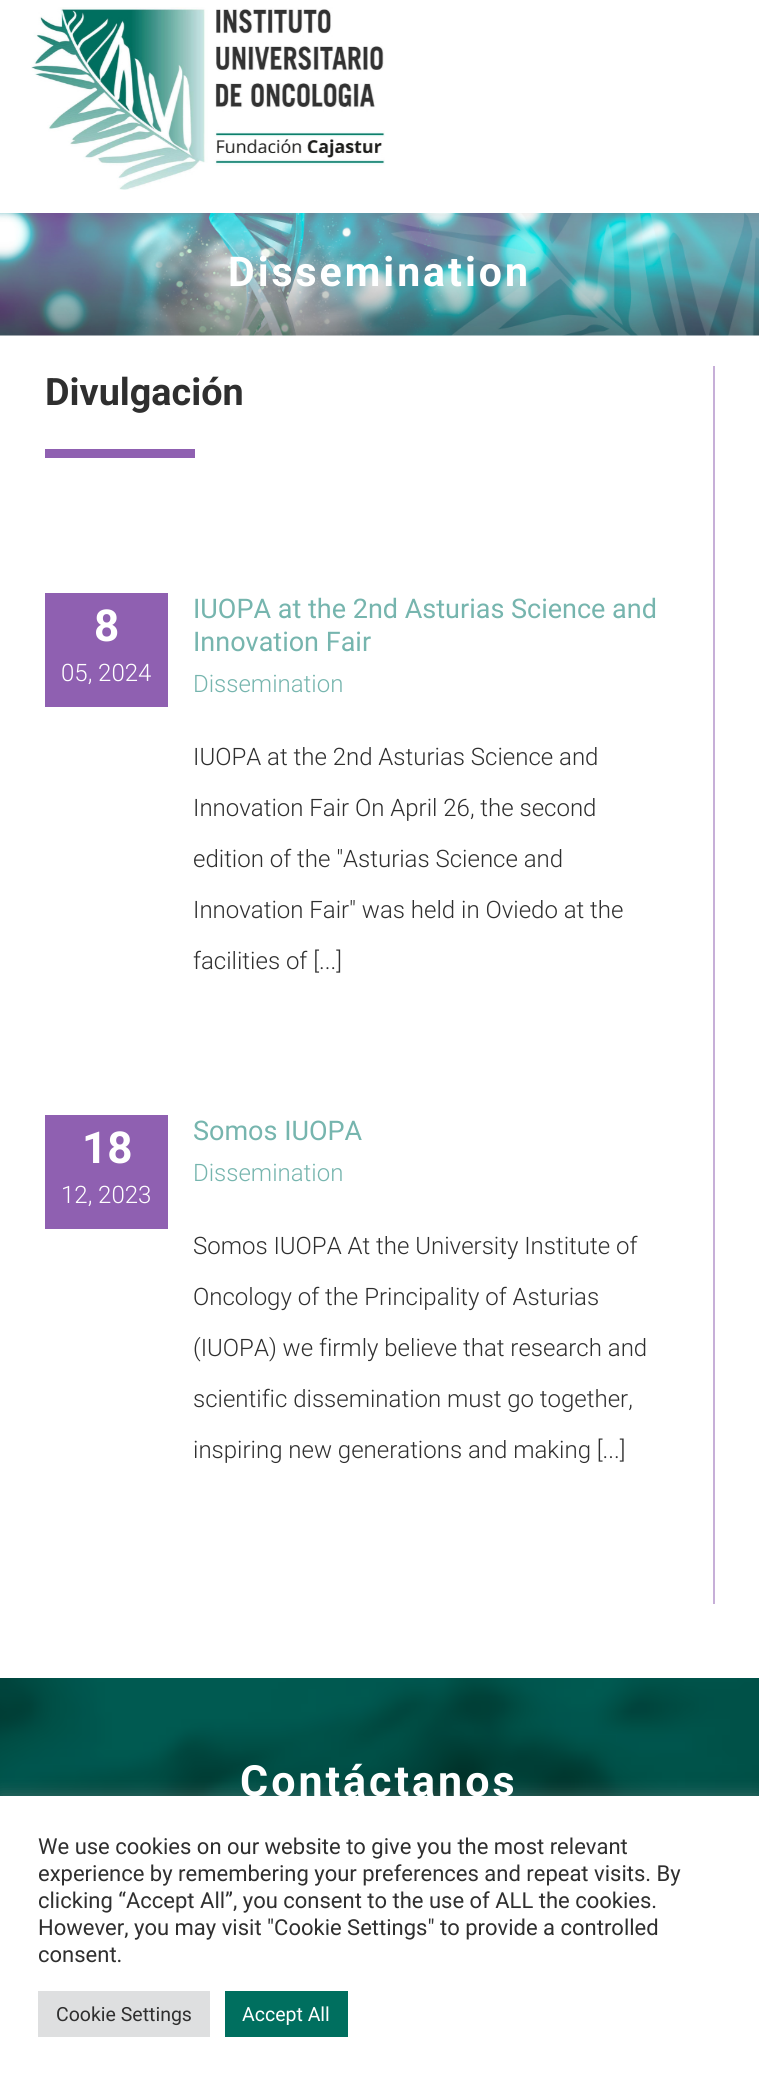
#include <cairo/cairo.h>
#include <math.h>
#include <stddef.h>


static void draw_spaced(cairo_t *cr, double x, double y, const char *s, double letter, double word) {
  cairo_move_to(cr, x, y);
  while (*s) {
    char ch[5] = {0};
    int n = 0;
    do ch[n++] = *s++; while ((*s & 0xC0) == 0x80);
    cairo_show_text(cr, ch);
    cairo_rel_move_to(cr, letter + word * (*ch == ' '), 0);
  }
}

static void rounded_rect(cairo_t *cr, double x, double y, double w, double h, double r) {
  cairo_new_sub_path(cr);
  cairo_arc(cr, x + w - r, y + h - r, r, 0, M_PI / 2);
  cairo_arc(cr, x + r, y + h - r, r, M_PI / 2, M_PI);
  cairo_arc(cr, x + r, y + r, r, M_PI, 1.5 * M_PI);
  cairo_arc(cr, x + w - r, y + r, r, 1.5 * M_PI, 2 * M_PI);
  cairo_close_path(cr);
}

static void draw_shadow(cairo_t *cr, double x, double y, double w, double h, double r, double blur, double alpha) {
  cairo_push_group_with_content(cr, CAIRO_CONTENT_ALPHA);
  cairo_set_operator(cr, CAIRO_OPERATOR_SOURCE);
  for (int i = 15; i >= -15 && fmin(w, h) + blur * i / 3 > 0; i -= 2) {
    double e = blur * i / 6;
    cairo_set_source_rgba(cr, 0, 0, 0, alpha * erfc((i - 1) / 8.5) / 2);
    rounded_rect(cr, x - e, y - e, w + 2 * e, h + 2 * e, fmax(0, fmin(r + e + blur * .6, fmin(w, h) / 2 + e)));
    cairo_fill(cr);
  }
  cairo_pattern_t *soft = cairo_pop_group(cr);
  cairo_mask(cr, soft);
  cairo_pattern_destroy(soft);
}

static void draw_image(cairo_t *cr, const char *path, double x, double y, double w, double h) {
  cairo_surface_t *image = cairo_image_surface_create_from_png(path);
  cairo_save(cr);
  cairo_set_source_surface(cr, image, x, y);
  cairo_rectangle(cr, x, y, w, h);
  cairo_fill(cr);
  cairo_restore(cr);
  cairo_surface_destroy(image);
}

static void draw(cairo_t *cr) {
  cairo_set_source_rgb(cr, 1, 1, 1);
  cairo_paint(cr);
  draw_image(cr, "images/2.png", 0, 213, 759, 123);
  cairo_set_source_rgb(cr, 80 / 255.0, 53 / 255.0, 31 / 255.0);
  draw_shadow(cr, 0, -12, 759, 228, 0, 4, 0.05);
  cairo_set_source_rgb(cr, 1, 1, 1);
  cairo_rectangle(cr, 0, 0, 759, 213);
  cairo_fill(cr);
  draw_image(cr, "images/1.png", 31, 7, 354, 183);
  cairo_set_source_rgb(cr, 199 / 255.0, 175 / 255.0, 216 / 255.0);
  cairo_rectangle(cr, 713, 366, 2, 1238);
  cairo_fill(cr);
  cairo_set_source_rgb(cr, 143 / 255.0, 96 / 255.0, 177 / 255.0);
  cairo_rectangle(cr, 45, 449, 150, 9);
  cairo_fill(cr);
  cairo_rectangle(cr, 45, 593, 123, 114);
  cairo_fill(cr);
  cairo_rectangle(cr, 45, 1115, 123, 114);
  cairo_fill(cr);
  draw_image(cr, "images/3.png", 0, 1678, 759, 118);
  cairo_set_source_rgb(cr, 172 / 255.0, 171 / 255.0, 171 / 255.0);
  draw_shadow(cr, 0, 1794, 759, 287, 0, 7.5, 0.3);
  cairo_set_source_rgb(cr, 1, 1, 1);
  cairo_rectangle(cr, 0, 1796, 759, 286);
  cairo_fill(cr);
  cairo_set_source_rgb(cr, 222 / 255.0, 223 / 255.0, 224 / 255.0);
  cairo_rectangle(cr, 38, 1991, 172, 46);
  cairo_fill(cr);
  cairo_set_source_rgb(cr, 0, 111 / 255.0, 95 / 255.0);
  cairo_rectangle(cr, 225, 1991, 123, 46);
  cairo_fill(cr);
  cairo_select_font_face(cr, "Roboto", CAIRO_FONT_SLANT_NORMAL, CAIRO_FONT_WEIGHT_BOLD);
  cairo_set_font_size(cr, 41);
  cairo_set_source_rgb(cr, 1, 1, 1);
  draw_spaced(cr, 228, 286, "Dissemination", 3, 0);
  cairo_set_font_size(cr, 37.75);
  cairo_set_source_rgb(cr, 47 / 255.0, 47 / 255.0, 47 / 255.0);
  cairo_move_to(cr, 45, 405);
  cairo_show_text(cr, "Divulgación");
  cairo_set_font_size(cr, 44);
  cairo_set_source_rgb(cr, 1, 1, 1);
  cairo_move_to(cr, 94, 641);
  cairo_show_text(cr, "8");
  cairo_select_font_face(cr, "Roboto Light", CAIRO_FONT_SLANT_NORMAL, CAIRO_FONT_WEIGHT_NORMAL);
  cairo_set_font_size(cr, 24);
  cairo_move_to(cr, 61, 681);
  cairo_show_text(cr, "05, 2024");
  cairo_select_font_face(cr, "Roboto", CAIRO_FONT_SLANT_NORMAL, CAIRO_FONT_WEIGHT_NORMAL);
  cairo_set_font_size(cr, 27);
  cairo_set_source_rgb(cr, 118 / 255.0, 181 / 255.0, 174 / 255.0);
  cairo_move_to(cr, 193, 618);
  cairo_show_text(cr, "IUOPA at the 2nd Asturias Science and");
  cairo_move_to(cr, 193, 651);
  cairo_show_text(cr, "Innovation Fair");
  cairo_select_font_face(cr, "Roboto Light", CAIRO_FONT_SLANT_NORMAL, CAIRO_FONT_WEIGHT_NORMAL);
  cairo_set_font_size(cr, 24);
  cairo_move_to(cr, 193, 692);
  cairo_show_text(cr, "Dissemination");
  cairo_set_source_rgb(cr, 47 / 255.0, 47 / 255.0, 47 / 255.0);
  cairo_move_to(cr, 193, 765);
  cairo_show_text(cr, "IUOPA at the 2nd Asturias Science and");
  cairo_move_to(cr, 193, 816);
  cairo_show_text(cr, "Innovation Fair On April 26, the second");
  cairo_move_to(cr, 193, 867);
  cairo_show_text(cr, "edition of the \"Asturias Science and");
  cairo_move_to(cr, 193, 918);
  cairo_show_text(cr, "Innovation Fair\" was held in Oviedo at the");
  cairo_move_to(cr, 193, 969);
  cairo_show_text(cr, "facilities of [...]");
  cairo_select_font_face(cr, "Roboto", CAIRO_FONT_SLANT_NORMAL, CAIRO_FONT_WEIGHT_BOLD);
  cairo_set_font_size(cr, 44);
  cairo_set_source_rgb(cr, 1, 1, 1);
  cairo_move_to(cr, 82, 1163);
  cairo_show_text(cr, "18");
  cairo_select_font_face(cr, "Roboto Light", CAIRO_FONT_SLANT_NORMAL, CAIRO_FONT_WEIGHT_NORMAL);
  cairo_set_font_size(cr, 24);
  cairo_move_to(cr, 61, 1203);
  cairo_show_text(cr, "12, 2023");
  cairo_select_font_face(cr, "Roboto", CAIRO_FONT_SLANT_NORMAL, CAIRO_FONT_WEIGHT_NORMAL);
  cairo_set_font_size(cr, 27);
  cairo_set_source_rgb(cr, 118 / 255.0, 181 / 255.0, 174 / 255.0);
  cairo_move_to(cr, 193, 1140);
  cairo_show_text(cr, "Somos IUOPA");
  cairo_select_font_face(cr, "Roboto Light", CAIRO_FONT_SLANT_NORMAL, CAIRO_FONT_WEIGHT_NORMAL);
  cairo_set_font_size(cr, 24);
  cairo_move_to(cr, 193, 1181);
  cairo_show_text(cr, "Dissemination");
  cairo_set_source_rgb(cr, 47 / 255.0, 47 / 255.0, 47 / 255.0);
  cairo_move_to(cr, 193, 1254);
  cairo_show_text(cr, "Somos IUOPA At the University Institute of");
  cairo_move_to(cr, 193, 1305);
  cairo_show_text(cr, "Oncology of the Principality of Asturias");
  cairo_move_to(cr, 193, 1356);
  cairo_show_text(cr, "(IUOPA) we firmly believe that research and");
  cairo_move_to(cr, 193, 1407);
  cairo_show_text(cr, "scientific dissemination must go together,");
  cairo_move_to(cr, 193, 1458);
  cairo_show_text(cr, "inspiring new generations and making [...]");
  cairo_select_font_face(cr, "Roboto", CAIRO_FONT_SLANT_NORMAL, CAIRO_FONT_WEIGHT_BOLD);
  cairo_set_font_size(cr, 43);
  cairo_set_source_rgb(cr, 1, 1, 1);
  draw_spaced(cr, 240, 1796, "Contáctanos", 3, 0);
  cairo_select_font_face(cr, "Roboto", CAIRO_FONT_SLANT_NORMAL, CAIRO_FONT_WEIGHT_NORMAL);
  cairo_set_font_size(cr, 22);
  cairo_set_source_rgb(cr, 47 / 255.0, 47 / 255.0, 47 / 255.0);
  cairo_move_to(cr, 38, 1854);
  cairo_show_text(cr, "We use cookies on our website to give you the most relevant");
  cairo_move_to(cr, 38, 1881);
  cairo_show_text(cr, "experience by remembering your preferences and repeat visits. By");
  cairo_move_to(cr, 38, 1908);
  cairo_show_text(cr, "clicking “Accept All”, you consent to the use of ALL the cookies.");
  cairo_move_to(cr, 38, 1935);
  cairo_show_text(cr, "However, you may visit \"Cookie Settings\" to provide a controlled");
  cairo_move_to(cr, 38, 1962);
  cairo_show_text(cr, "consent.");
  cairo_set_font_size(cr, 19.5);
  cairo_move_to(cr, 56, 2021);
  cairo_show_text(cr, "Cookie Settings");
  cairo_set_source_rgb(cr, 1, 1, 1);
  cairo_move_to(cr, 242, 2021);
  cairo_show_text(cr, "Accept All");
}

int main(void) {
  cairo_surface_t *surface = cairo_image_surface_create(CAIRO_FORMAT_RGB24, 759, 2082);
  cairo_t *cr = cairo_create(surface);
  cairo_font_options_t *options = cairo_font_options_create();
  cairo_font_options_set_hint_metrics(options, CAIRO_HINT_METRICS_OFF);
  cairo_font_options_set_hint_style(options, CAIRO_HINT_STYLE_NONE);
  cairo_set_font_options(cr, options);
  cairo_set_miter_limit(cr, 4);
  draw(cr);
  cairo_surface_write_to_png(surface, "out.png");
  cairo_font_options_destroy(options);
  cairo_destroy(cr);
  cairo_surface_destroy(surface);
  return 0;
}
